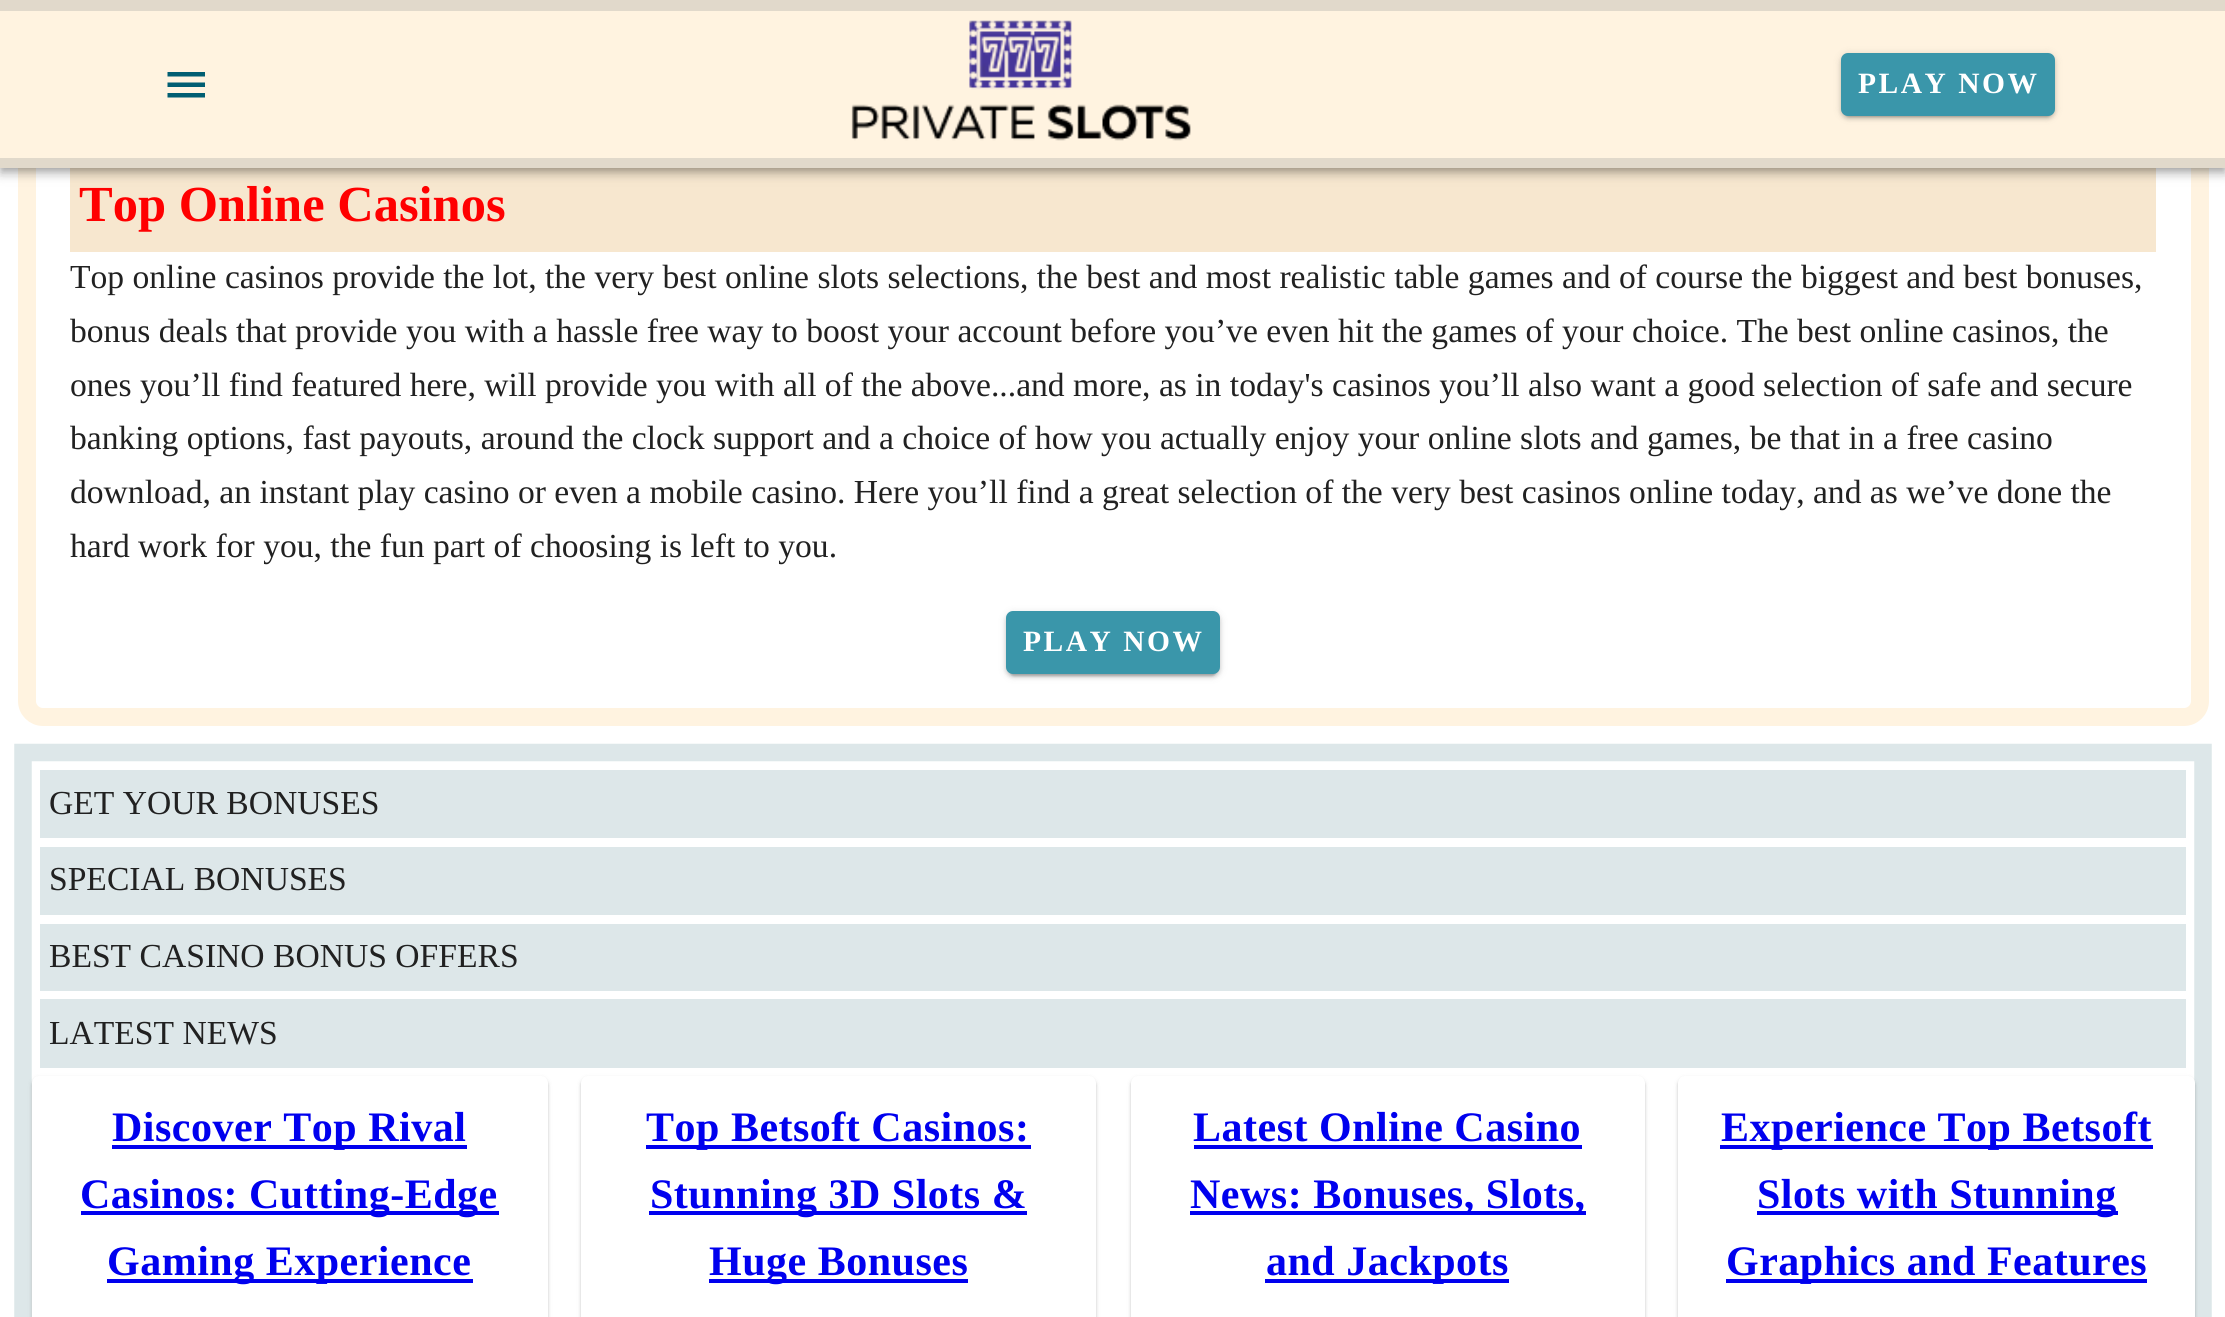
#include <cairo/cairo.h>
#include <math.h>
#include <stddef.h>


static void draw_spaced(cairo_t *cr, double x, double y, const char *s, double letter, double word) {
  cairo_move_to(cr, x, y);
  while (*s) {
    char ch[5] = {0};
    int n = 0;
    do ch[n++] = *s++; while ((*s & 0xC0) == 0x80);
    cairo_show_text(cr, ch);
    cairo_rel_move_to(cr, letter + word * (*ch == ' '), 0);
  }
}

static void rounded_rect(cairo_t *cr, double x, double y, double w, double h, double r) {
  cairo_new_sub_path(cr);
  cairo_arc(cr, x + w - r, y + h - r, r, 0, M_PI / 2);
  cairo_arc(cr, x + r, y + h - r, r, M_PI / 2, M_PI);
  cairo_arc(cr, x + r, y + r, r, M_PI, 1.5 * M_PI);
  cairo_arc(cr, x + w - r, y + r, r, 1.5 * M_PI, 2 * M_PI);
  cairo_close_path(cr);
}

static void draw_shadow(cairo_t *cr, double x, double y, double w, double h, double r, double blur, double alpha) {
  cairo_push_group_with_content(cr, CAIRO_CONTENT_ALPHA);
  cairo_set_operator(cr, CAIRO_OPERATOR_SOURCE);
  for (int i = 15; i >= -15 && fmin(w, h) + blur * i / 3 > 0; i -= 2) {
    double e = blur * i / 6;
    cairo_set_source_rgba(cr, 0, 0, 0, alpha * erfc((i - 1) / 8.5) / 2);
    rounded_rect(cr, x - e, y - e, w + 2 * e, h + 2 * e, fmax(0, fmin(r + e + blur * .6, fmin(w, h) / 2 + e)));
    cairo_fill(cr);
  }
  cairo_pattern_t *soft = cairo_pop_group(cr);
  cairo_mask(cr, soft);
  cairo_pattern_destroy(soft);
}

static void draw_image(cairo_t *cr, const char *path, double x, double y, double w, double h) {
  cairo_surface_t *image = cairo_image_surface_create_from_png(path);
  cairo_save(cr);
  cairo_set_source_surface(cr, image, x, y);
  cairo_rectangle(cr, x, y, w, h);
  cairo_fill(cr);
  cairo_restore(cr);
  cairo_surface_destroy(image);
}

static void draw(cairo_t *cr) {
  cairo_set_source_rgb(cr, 1, 1, 1);
  cairo_paint(cr);
  rounded_rect(cr, 27, 114, 2173, 603, 16);
  cairo_set_source_rgb(cr, 1, 243 / 255.0, 224 / 255.0);
  cairo_set_line_width(cr, 18);
  cairo_stroke(cr);
  cairo_set_source_rgb(cr, 247 / 255.0, 231 / 255.0, 207 / 255.0);
  cairo_rectangle(cr, 70, 168, 2086, 84);
  cairo_fill(cr);
  cairo_set_source_rgb(cr, 0, 0, 0);
  draw_shadow(cr, 0, 2, 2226, 168, 0, 9, 0.12);
  draw_shadow(cr, 0, 7, 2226, 168, 0, 4.5, 0.14);
  draw_shadow(cr, 2, 5, 2222, 165, 0, 3.5, 0.2);
  cairo_set_source_rgb(cr, 1, 243 / 255.0, 224 / 255.0);
  cairo_rectangle(cr, 0, 11, 2225, 147);
  cairo_fill(cr);
  cairo_set_source_rgb(cr, 225 / 255.0, 217 / 255.0, 203 / 255.0);
  cairo_rectangle(cr, 0, 0, 2225, 11);
  cairo_fill(cr);
  cairo_rectangle(cr, 0, 158, 2225, 10);
  cairo_fill(cr);
  cairo_set_source_rgb(cr, 1 / 255.0, 94 / 255.0, 114 / 255.0);
  cairo_new_path(cr);
  cairo_move_to(cr, 167.5, 72);
  cairo_line_to(cr, 205, 72);
  cairo_line_to(cr, 205, 76.5);
  cairo_line_to(cr, 167.5, 76.5);
  cairo_line_to(cr, 167.5, 72);
  cairo_move_to(cr, 167.5, 82.5);
  cairo_line_to(cr, 205, 82.5);
  cairo_line_to(cr, 205, 87);
  cairo_line_to(cr, 167.5, 87);
  cairo_line_to(cr, 167.5, 82.5);
  cairo_move_to(cr, 167.5, 93);
  cairo_line_to(cr, 205, 93);
  cairo_line_to(cr, 205, 97.5);
  cairo_line_to(cr, 167.5, 97.5);
  cairo_close_path(cr);
  cairo_fill(cr);
  draw_image(cr, "images/1.png", 851, 20, 340, 121);
  cairo_set_source_rgb(cr, 0, 0, 0);
  draw_shadow(cr, 1841, 54, 214, 63, 7, 4.5, 0.12);
  draw_shadow(cr, 1841, 56, 214, 63, 7, 2, 0.14);
  draw_shadow(cr, 1845, 61, 206, 56, 4, 1, 0.2);
  cairo_set_source_rgb(cr, 58 / 255.0, 150 / 255.0, 170 / 255.0);
  rounded_rect(cr, 1841, 53, 214, 63, 7);
  cairo_fill(cr);
  cairo_set_source_rgb(cr, 0, 0, 0);
  draw_shadow(cr, 1006, 613, 214, 63, 7, 4.5, 0.12);
  draw_shadow(cr, 1006, 614, 214, 63, 7, 2, 0.14);
  draw_shadow(cr, 1010, 620, 206, 56, 4, 1, 0.2);
  cairo_set_source_rgb(cr, 58 / 255.0, 150 / 255.0, 170 / 255.0);
  rounded_rect(cr, 1006, 611, 214, 63, 7);
  cairo_fill(cr);
  cairo_new_path(cr);
  cairo_move_to(cr, 23, 752.5);
  cairo_line_to(cr, 2203, 752.5);
  cairo_line_to(cr, 2203, 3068);
  cairo_line_to(cr, 23, 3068);
  cairo_close_path(cr);
  cairo_set_source_rgb(cr, 221 / 255.0, 231 / 255.0, 233 / 255.0);
  cairo_set_line_width(cr, 17.5);
  cairo_stroke(cr);
  cairo_rectangle(cr, 40, 770, 2146, 68);
  cairo_fill(cr);
  cairo_rectangle(cr, 40, 847, 2146, 68);
  cairo_fill(cr);
  cairo_rectangle(cr, 40, 924, 2146, 67);
  cairo_fill(cr);
  cairo_rectangle(cr, 40, 999, 2146, 69);
  cairo_fill(cr);
  cairo_set_source_rgb(cr, 0, 0, 0);
  draw_shadow(cr, 32, 1078, 516, 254, 7, 2.5, 0.12);
  draw_shadow(cr, 32, 1078, 516, 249, 7, 1, 0.14);
  cairo_set_source_rgb(cr, 1, 1, 1);
  rounded_rect(cr, 32, 1076, 516, 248, 7);
  cairo_fill(cr);
  cairo_set_source_rgb(cr, 0, 0, 238 / 255.0);
  cairo_rectangle(cr, 112, 1145, 355, 4);
  cairo_fill(cr);
  cairo_rectangle(cr, 81, 1211, 418, 4);
  cairo_fill(cr);
  cairo_rectangle(cr, 107, 1279, 366, 4);
  cairo_fill(cr);
  cairo_set_source_rgb(cr, 0, 0, 0);
  draw_shadow(cr, 581, 1078, 515, 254, 7, 2.5, 0.12);
  draw_shadow(cr, 581, 1078, 515, 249, 7, 1, 0.14);
  cairo_set_source_rgb(cr, 1, 1, 1);
  rounded_rect(cr, 581, 1076, 515, 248, 7);
  cairo_fill(cr);
  cairo_set_source_rgb(cr, 0, 0, 238 / 255.0);
  cairo_rectangle(cr, 646, 1145, 385, 4);
  cairo_fill(cr);
  cairo_rectangle(cr, 649, 1211, 378, 4);
  cairo_fill(cr);
  cairo_rectangle(cr, 709, 1279, 259, 4);
  cairo_fill(cr);
  cairo_set_source_rgb(cr, 0, 0, 0);
  draw_shadow(cr, 1131, 1078, 514, 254, 7, 2.5, 0.12);
  draw_shadow(cr, 1131, 1078, 514, 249, 7, 1, 0.14);
  cairo_set_source_rgb(cr, 1, 1, 1);
  rounded_rect(cr, 1131, 1076, 514, 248, 7);
  cairo_fill(cr);
  cairo_set_source_rgb(cr, 0, 0, 238 / 255.0);
  cairo_rectangle(cr, 1194, 1145, 388, 4);
  cairo_fill(cr);
  cairo_rectangle(cr, 1190, 1211, 396, 4);
  cairo_fill(cr);
  cairo_rectangle(cr, 1265, 1279, 244, 4);
  cairo_fill(cr);
  cairo_set_source_rgb(cr, 0, 0, 0);
  draw_shadow(cr, 1678, 1078, 517, 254, 7, 2.5, 0.12);
  draw_shadow(cr, 1678, 1078, 517, 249, 7, 1, 0.14);
  cairo_set_source_rgb(cr, 1, 1, 1);
  rounded_rect(cr, 1678, 1076, 517, 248, 7);
  cairo_fill(cr);
  cairo_set_source_rgb(cr, 0, 0, 238 / 255.0);
  cairo_rectangle(cr, 1720, 1145, 433, 4);
  cairo_fill(cr);
  cairo_rectangle(cr, 1757, 1211, 361, 4);
  cairo_fill(cr);
  cairo_rectangle(cr, 1726, 1279, 421, 4);
  cairo_fill(cr);
  cairo_select_font_face(cr, "Liberation Serif", CAIRO_FONT_SLANT_NORMAL, CAIRO_FONT_WEIGHT_BOLD);
  cairo_set_font_size(cr, 29.5);
  cairo_set_source_rgb(cr, 1, 1, 1);
  draw_spaced(cr, 1858, 93, "PLAY NOW", 2.5, 0);
  cairo_set_font_size(cr, 50.5);
  cairo_set_source_rgb(cr, 1, 0, 0);
  cairo_move_to(cr, 79, 221);
  cairo_show_text(cr, "Top Online Casinos");
  cairo_select_font_face(cr, "Liberation Serif", CAIRO_FONT_SLANT_NORMAL, CAIRO_FONT_WEIGHT_NORMAL);
  cairo_set_font_size(cr, 33.6);
  cairo_set_source_rgb(cr, 33 / 255.0, 33 / 255.0, 33 / 255.0);
  cairo_move_to(cr, 70, 288);
  cairo_show_text(cr, "Top online casinos provide the lot, the very best online slots selections, the best and most realistic table games and of course the biggest and best bonuses,");
  cairo_move_to(cr, 70, 342);
  cairo_show_text(cr, "bonus deals that provide you with a hassle free way to boost your account before you’ve even hit the games of your choice. The best online casinos, the");
  cairo_move_to(cr, 70, 396);
  cairo_show_text(cr, "ones you’ll find featured here, will provide you with all of the above...and more, as in today's casinos you’ll also want a good selection of safe and secure");
  cairo_move_to(cr, 70, 449);
  cairo_show_text(cr, "banking options, fast payouts, around the clock support and a choice of how you actually enjoy your online slots and games, be that in a free casino");
  cairo_move_to(cr, 70, 503);
  cairo_show_text(cr, "download, an instant play casino or even a mobile casino. Here you’ll find a great selection of the very best casinos online today, and as we’ve done the");
  cairo_move_to(cr, 70, 557);
  cairo_show_text(cr, "hard work for you, the fun part of choosing is left to you.");
  cairo_select_font_face(cr, "Liberation Serif", CAIRO_FONT_SLANT_NORMAL, CAIRO_FONT_WEIGHT_BOLD);
  cairo_set_font_size(cr, 29.5);
  cairo_set_source_rgb(cr, 1, 1, 1);
  draw_spaced(cr, 1023, 651, "PLAY NOW", 2.5, 0);
  cairo_select_font_face(cr, "Liberation Serif", CAIRO_FONT_SLANT_NORMAL, CAIRO_FONT_WEIGHT_NORMAL);
  cairo_set_font_size(cr, 33.6);
  cairo_set_source_rgb(cr, 33 / 255.0, 33 / 255.0, 33 / 255.0);
  cairo_move_to(cr, 49, 814);
  cairo_show_text(cr, "GET YOUR BONUSES");
  cairo_move_to(cr, 49, 890);
  cairo_show_text(cr, "SPECIAL BONUSES");
  cairo_move_to(cr, 49, 967);
  cairo_show_text(cr, "BEST CASINO BONUS OFFERS");
  cairo_move_to(cr, 49, 1044);
  cairo_show_text(cr, "LATEST NEWS");
  cairo_select_font_face(cr, "Liberation Serif", CAIRO_FONT_SLANT_NORMAL, CAIRO_FONT_WEIGHT_BOLD);
  cairo_set_font_size(cr, 42);
  cairo_set_source_rgb(cr, 0, 0, 238 / 255.0);
  draw_spaced(cr, 112, 1141, "Discover Top Rival", 0.5, 0);
  draw_spaced(cr, 80, 1208, "Casinos: Cutting-Edge", 0.5, 0);
  draw_spaced(cr, 107, 1275, "Gaming Experience", 0.5, 0);
  draw_spaced(cr, 646, 1141, "Top Betsoft Casinos:", 0.5, 0);
  draw_spaced(cr, 650, 1208, "Stunning 3D Slots &", 0.5, 0);
  draw_spaced(cr, 709, 1275, "Huge Bonuses", 0.5, 0);
  draw_spaced(cr, 1193, 1141, "Latest Online Casino", 0.5, 0);
  draw_spaced(cr, 1190, 1208, "News: Bonuses, Slots,", 0.5, 0);
  draw_spaced(cr, 1266, 1275, "and Jackpots", 0.5, 0);
  draw_spaced(cr, 1721, 1141, "Experience Top Betsoft", 0.5, 0);
  draw_spaced(cr, 1757, 1208, "Slots with Stunning", 0.5, 0);
  draw_spaced(cr, 1726, 1275, "Graphics and Features", 0.5, 0);
}

int main(void) {
  cairo_surface_t *surface = cairo_image_surface_create(CAIRO_FORMAT_RGB24, 2225, 1317);
  cairo_t *cr = cairo_create(surface);
  cairo_font_options_t *options = cairo_font_options_create();
  cairo_font_options_set_hint_metrics(options, CAIRO_HINT_METRICS_OFF);
  cairo_font_options_set_hint_style(options, CAIRO_HINT_STYLE_NONE);
  cairo_set_font_options(cr, options);
  cairo_set_miter_limit(cr, 4);
  draw(cr);
  cairo_surface_write_to_png(surface, "out.png");
  cairo_font_options_destroy(options);
  cairo_destroy(cr);
  cairo_surface_destroy(surface);
  return 0;
}
